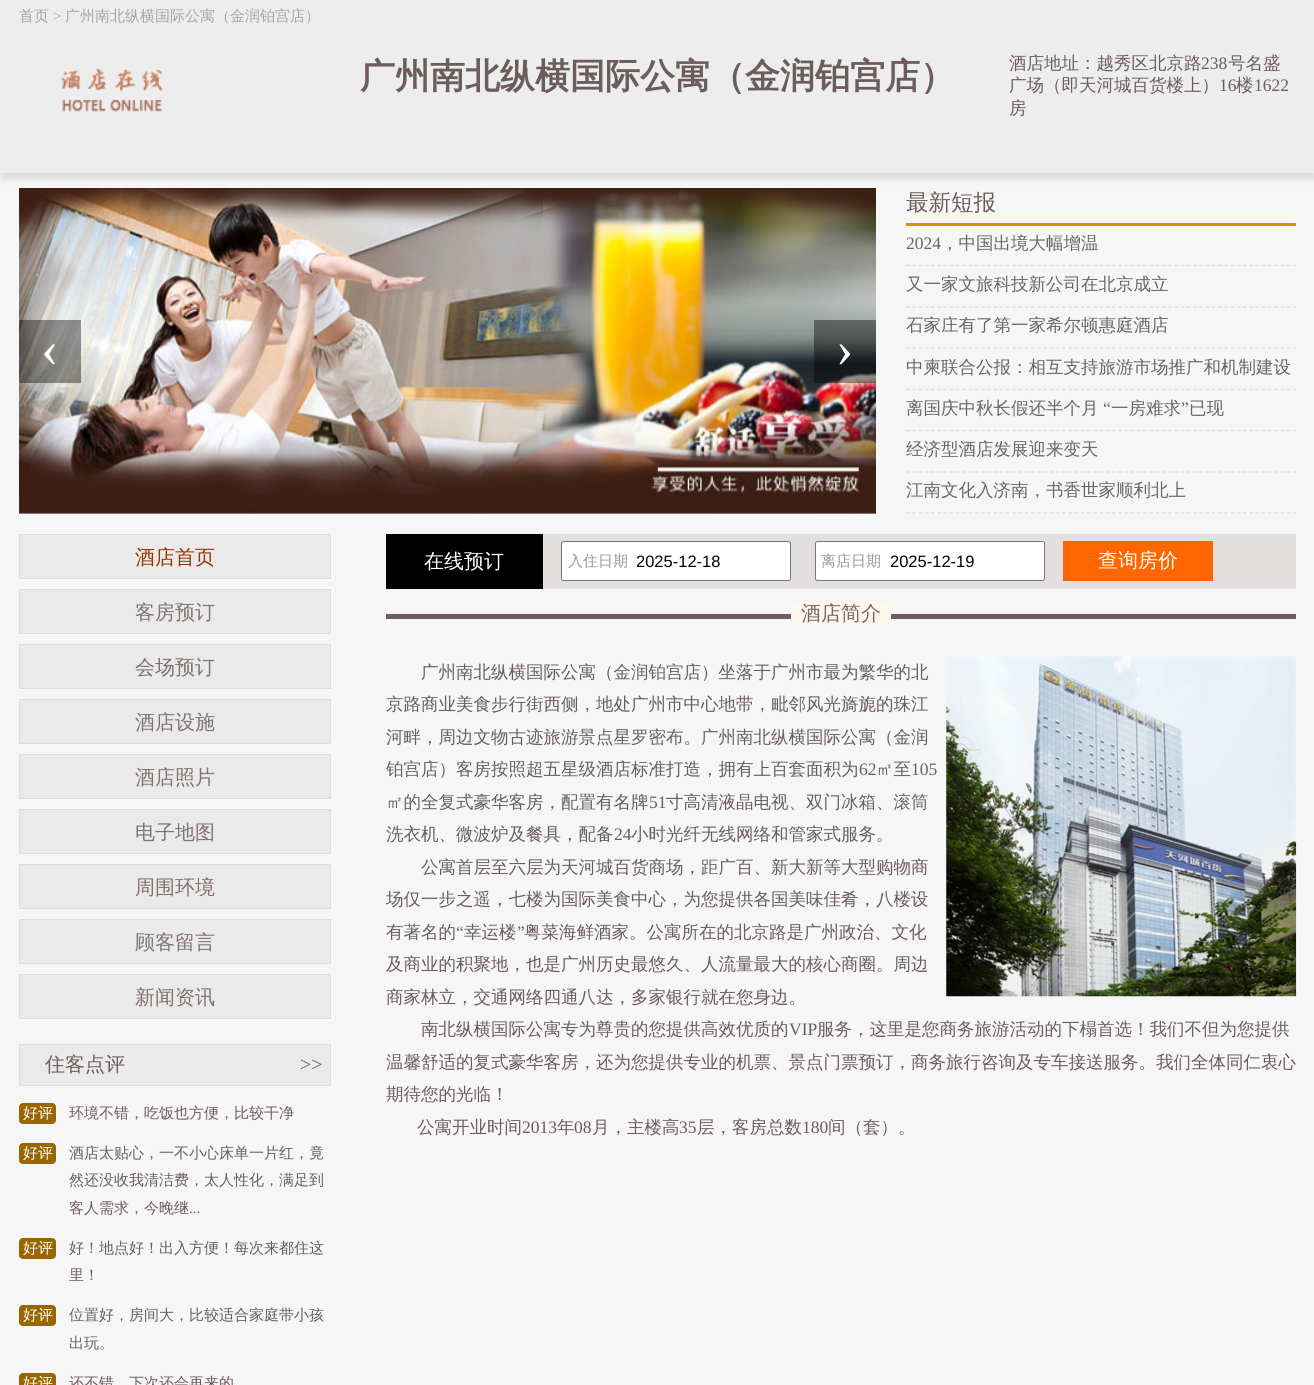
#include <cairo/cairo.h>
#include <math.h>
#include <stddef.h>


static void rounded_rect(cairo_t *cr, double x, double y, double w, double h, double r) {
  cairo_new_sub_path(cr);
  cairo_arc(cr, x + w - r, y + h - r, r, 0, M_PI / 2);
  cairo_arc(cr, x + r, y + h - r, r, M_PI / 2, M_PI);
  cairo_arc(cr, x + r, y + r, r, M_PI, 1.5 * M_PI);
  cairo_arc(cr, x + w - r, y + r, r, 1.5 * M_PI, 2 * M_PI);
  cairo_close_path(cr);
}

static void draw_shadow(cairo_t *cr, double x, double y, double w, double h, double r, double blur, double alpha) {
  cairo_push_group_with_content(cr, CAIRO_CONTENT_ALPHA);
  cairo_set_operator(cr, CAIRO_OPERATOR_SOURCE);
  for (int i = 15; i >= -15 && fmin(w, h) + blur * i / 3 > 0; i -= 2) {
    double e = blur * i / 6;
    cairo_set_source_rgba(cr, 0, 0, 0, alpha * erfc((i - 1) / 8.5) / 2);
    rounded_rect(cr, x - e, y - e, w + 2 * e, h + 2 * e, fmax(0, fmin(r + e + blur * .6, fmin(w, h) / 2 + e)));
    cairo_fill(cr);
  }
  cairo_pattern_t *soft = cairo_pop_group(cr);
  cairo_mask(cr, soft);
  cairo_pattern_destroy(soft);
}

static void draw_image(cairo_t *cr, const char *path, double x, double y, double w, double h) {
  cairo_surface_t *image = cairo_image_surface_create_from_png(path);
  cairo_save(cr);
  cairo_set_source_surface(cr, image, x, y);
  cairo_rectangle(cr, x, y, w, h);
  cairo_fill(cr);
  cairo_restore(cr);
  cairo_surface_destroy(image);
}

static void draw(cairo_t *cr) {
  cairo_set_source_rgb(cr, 246 / 255.0, 246 / 255.0, 246 / 255.0);
  cairo_paint(cr);
  cairo_set_source_rgb(cr, 221 / 255.0, 221 / 255.0, 221 / 255.0);
  draw_shadow(cr, 1, 6, 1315, 173, 0, 3, 1);
  cairo_set_source_rgb(cr, 238 / 255.0, 237 / 255.0, 237 / 255.0);
  cairo_rectangle(cr, 0, 0, 1314, 173);
  cairo_fill(cr);
  draw_image(cr, "images/1.png", 61, 68, 102, 44);
  draw_image(cr, "images/2.png", 19, 188, 857, 326);
  cairo_set_source_rgba(cr, 0, 0, 0, 0.4);
  cairo_rectangle(cr, 19, 320, 62, 63);
  cairo_fill(cr);
  cairo_rectangle(cr, 814, 320, 62, 63);
  cairo_fill(cr);
  cairo_set_source_rgb(cr, 204 / 255.0, 153 / 255.0, 0);
  cairo_rectangle(cr, 906, 223, 390, 3);
  cairo_fill(cr);
  cairo_save(cr);
  cairo_rectangle(cr, 906, 225, 390, 289);
  cairo_clip(cr);
  cairo_new_path(cr);
  cairo_move_to(cr, 906, 265.5);
  cairo_line_to(cr, 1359, 265.5);
  cairo_set_source_rgb(cr, 226 / 255.0, 219 / 255.0, 219 / 255.0);
  cairo_set_line_width(cr, 1.2);
  cairo_set_dash(cr, (double[]){3.75, 2.49}, 2, 0);
  cairo_stroke(cr);
  cairo_new_path(cr);
  cairo_move_to(cr, 906, 307);
  cairo_line_to(cr, 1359, 307);
  cairo_stroke(cr);
  cairo_new_path(cr);
  cairo_move_to(cr, 906, 348);
  cairo_line_to(cr, 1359, 348);
  cairo_stroke(cr);
  cairo_new_path(cr);
  cairo_move_to(cr, 906, 389.5);
  cairo_line_to(cr, 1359, 389.5);
  cairo_stroke(cr);
  cairo_new_path(cr);
  cairo_move_to(cr, 906, 430.5);
  cairo_line_to(cr, 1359, 430.5);
  cairo_stroke(cr);
  cairo_new_path(cr);
  cairo_move_to(cr, 906, 472);
  cairo_line_to(cr, 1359, 472);
  cairo_stroke(cr);
  cairo_new_path(cr);
  cairo_move_to(cr, 906, 513);
  cairo_line_to(cr, 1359, 513);
  cairo_stroke(cr);
  cairo_restore(cr);
  cairo_set_source_rgb(cr, 234 / 255.0, 234 / 255.0, 234 / 255.0);
  cairo_rectangle(cr, 19.5, 534.5, 311, 44);
  cairo_fill_preserve(cr);
  cairo_set_source_rgb(cr, 226 / 255.0, 219 / 255.0, 219 / 255.0);
  cairo_set_line_width(cr, 1);
  cairo_stroke(cr);
  cairo_set_source_rgb(cr, 234 / 255.0, 234 / 255.0, 234 / 255.0);
  cairo_rectangle(cr, 19.5, 589.5, 311, 44);
  cairo_fill_preserve(cr);
  cairo_set_source_rgb(cr, 226 / 255.0, 219 / 255.0, 219 / 255.0);
  cairo_stroke(cr);
  cairo_set_source_rgb(cr, 234 / 255.0, 234 / 255.0, 234 / 255.0);
  cairo_rectangle(cr, 19.5, 644.5, 311, 44);
  cairo_fill_preserve(cr);
  cairo_set_source_rgb(cr, 226 / 255.0, 219 / 255.0, 219 / 255.0);
  cairo_stroke(cr);
  cairo_set_source_rgb(cr, 234 / 255.0, 234 / 255.0, 234 / 255.0);
  cairo_rectangle(cr, 19.5, 699.5, 311, 44);
  cairo_fill_preserve(cr);
  cairo_set_source_rgb(cr, 226 / 255.0, 219 / 255.0, 219 / 255.0);
  cairo_stroke(cr);
  cairo_set_source_rgb(cr, 234 / 255.0, 234 / 255.0, 234 / 255.0);
  cairo_rectangle(cr, 19.5, 754.5, 311, 44);
  cairo_fill_preserve(cr);
  cairo_set_source_rgb(cr, 226 / 255.0, 219 / 255.0, 219 / 255.0);
  cairo_stroke(cr);
  cairo_set_source_rgb(cr, 234 / 255.0, 234 / 255.0, 234 / 255.0);
  cairo_rectangle(cr, 19.5, 809.5, 311, 44);
  cairo_fill_preserve(cr);
  cairo_set_source_rgb(cr, 226 / 255.0, 219 / 255.0, 219 / 255.0);
  cairo_stroke(cr);
  cairo_set_source_rgb(cr, 234 / 255.0, 234 / 255.0, 234 / 255.0);
  cairo_rectangle(cr, 19.5, 864.5, 311, 44);
  cairo_fill_preserve(cr);
  cairo_set_source_rgb(cr, 226 / 255.0, 219 / 255.0, 219 / 255.0);
  cairo_stroke(cr);
  cairo_set_source_rgb(cr, 234 / 255.0, 234 / 255.0, 234 / 255.0);
  cairo_rectangle(cr, 19.5, 919.5, 311, 44);
  cairo_fill_preserve(cr);
  cairo_set_source_rgb(cr, 226 / 255.0, 219 / 255.0, 219 / 255.0);
  cairo_stroke(cr);
  cairo_set_source_rgb(cr, 234 / 255.0, 234 / 255.0, 234 / 255.0);
  cairo_rectangle(cr, 19.5, 974.5, 311, 44);
  cairo_fill_preserve(cr);
  cairo_set_source_rgb(cr, 226 / 255.0, 219 / 255.0, 219 / 255.0);
  cairo_stroke(cr);
  cairo_set_source_rgb(cr, 234 / 255.0, 234 / 255.0, 234 / 255.0);
  cairo_rectangle(cr, 19.5, 1044.5, 311, 41);
  cairo_fill_preserve(cr);
  cairo_set_source_rgb(cr, 226 / 255.0, 219 / 255.0, 219 / 255.0);
  cairo_stroke(cr);
  cairo_set_source_rgb(cr, 153 / 255.0, 102 / 255.0, 0);
  rounded_rect(cr, 19, 1103, 37, 21, 4);
  cairo_fill(cr);
  rounded_rect(cr, 19, 1143, 37, 21, 4);
  cairo_fill(cr);
  rounded_rect(cr, 19, 1238, 37, 21, 4);
  cairo_fill(cr);
  rounded_rect(cr, 19, 1305, 37, 21, 4);
  cairo_fill(cr);
  rounded_rect(cr, 19, 1373, 37, 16, 4);
  cairo_fill(cr);
  cairo_set_source_rgb(cr, 227 / 255.0, 223 / 255.0, 223 / 255.0);
  cairo_rectangle(cr, 543, 534, 753, 55);
  cairo_fill(cr);
  cairo_set_source_rgb(cr, 0, 0, 0);
  cairo_rectangle(cr, 386, 534, 157, 55);
  cairo_fill(cr);
  cairo_set_source_rgb(cr, 1, 1, 1);
  rounded_rect(cr, 561.5, 541.5, 229, 39, 2);
  cairo_fill_preserve(cr);
  cairo_set_source_rgb(cr, 118 / 255.0, 118 / 255.0, 118 / 255.0);
  cairo_stroke(cr);
  cairo_set_source_rgb(cr, 1, 1, 1);
  rounded_rect(cr, 815.5, 541.5, 229, 39, 2);
  cairo_fill_preserve(cr);
  cairo_set_source_rgb(cr, 118 / 255.0, 118 / 255.0, 118 / 255.0);
  cairo_stroke(cr);
  cairo_set_source_rgb(cr, 1, 102 / 255.0, 0);
  cairo_rectangle(cr, 1063, 541, 150, 40);
  cairo_fill(cr);
  cairo_set_source_rgb(cr, 108 / 255.0, 92 / 255.0, 92 / 255.0);
  cairo_rectangle(cr, 386, 614, 910, 5);
  cairo_fill(cr);
  cairo_set_source_rgb(cr, 254 / 255.0, 248 / 255.0, 236 / 255.0);
  cairo_rectangle(cr, 791, 603, 100, 21);
  cairo_fill(cr);
  draw_image(cr, "images/3.png", 946, 656, 351, 341);
  cairo_select_font_face(cr, "WenQuanYi Zen Hei Medium", CAIRO_FONT_SLANT_NORMAL, CAIRO_FONT_WEIGHT_NORMAL);
  cairo_set_font_size(cr, 15);
  cairo_set_source_rgb(cr, 168 / 255.0, 163 / 255.0, 163 / 255.0);
  cairo_move_to(cr, 19, 21);
  cairo_show_text(cr, "首页");
  cairo_select_font_face(cr, "Liberation Serif", CAIRO_FONT_SLANT_NORMAL, CAIRO_FONT_WEIGHT_NORMAL);
  cairo_move_to(cr, 53, 21);
  cairo_show_text(cr, ">");
  cairo_select_font_face(cr, "WenQuanYi Zen Hei Medium", CAIRO_FONT_SLANT_NORMAL, CAIRO_FONT_WEIGHT_NORMAL);
  cairo_move_to(cr, 65, 21);
  cairo_show_text(cr, "广州南北纵横国际公寓（金润铂宫店）");
  cairo_select_font_face(cr, "WenQuanYi Zen Hei", CAIRO_FONT_SLANT_NORMAL, CAIRO_FONT_WEIGHT_BOLD);
  cairo_set_font_size(cr, 35);
  cairo_set_source_rgb(cr, 108 / 255.0, 92 / 255.0, 92 / 255.0);
  cairo_move_to(cr, 360, 88);
  cairo_show_text(cr, "广州南北纵横国际公寓（金润铂宫店）");
  cairo_select_font_face(cr, "WenQuanYi Zen Hei Medium", CAIRO_FONT_SLANT_NORMAL, CAIRO_FONT_WEIGHT_NORMAL);
  cairo_set_font_size(cr, 17.5);
  cairo_move_to(cr, 1009, 69);
  cairo_show_text(cr, "酒店地址：越秀区北京路");
  cairo_select_font_face(cr, "Liberation Serif", CAIRO_FONT_SLANT_NORMAL, CAIRO_FONT_WEIGHT_NORMAL);
  cairo_move_to(cr, 1201, 69);
  cairo_show_text(cr, "238");
  cairo_select_font_face(cr, "WenQuanYi Zen Hei Medium", CAIRO_FONT_SLANT_NORMAL, CAIRO_FONT_WEIGHT_NORMAL);
  cairo_move_to(cr, 1228, 69);
  cairo_show_text(cr, "号名盛");
  cairo_move_to(cr, 1009, 91);
  cairo_show_text(cr, "广场（即天河城百货楼上）");
  cairo_select_font_face(cr, "Liberation Serif", CAIRO_FONT_SLANT_NORMAL, CAIRO_FONT_WEIGHT_NORMAL);
  cairo_move_to(cr, 1219, 91);
  cairo_show_text(cr, "16");
  cairo_select_font_face(cr, "WenQuanYi Zen Hei Medium", CAIRO_FONT_SLANT_NORMAL, CAIRO_FONT_WEIGHT_NORMAL);
  cairo_move_to(cr, 1236, 91);
  cairo_show_text(cr, "楼");
  cairo_select_font_face(cr, "Liberation Serif", CAIRO_FONT_SLANT_NORMAL, CAIRO_FONT_WEIGHT_NORMAL);
  cairo_move_to(cr, 1254, 91);
  cairo_show_text(cr, "1622");
  cairo_select_font_face(cr, "WenQuanYi Zen Hei Medium", CAIRO_FONT_SLANT_NORMAL, CAIRO_FONT_WEIGHT_NORMAL);
  cairo_move_to(cr, 1009, 114);
  cairo_show_text(cr, "房");
  cairo_select_font_face(cr, "Liberation Serif", CAIRO_FONT_SLANT_NORMAL, CAIRO_FONT_WEIGHT_NORMAL);
  cairo_set_font_size(cr, 52);
  cairo_set_source_rgb(cr, 1, 1, 1);
  cairo_move_to(cr, 41, 366);
  cairo_show_text(cr, "‹");
  cairo_move_to(cr, 836, 366);
  cairo_show_text(cr, "›");
  cairo_select_font_face(cr, "WenQuanYi Zen Hei Medium", CAIRO_FONT_SLANT_NORMAL, CAIRO_FONT_WEIGHT_NORMAL);
  cairo_set_font_size(cr, 22.5);
  cairo_set_source_rgb(cr, 108 / 255.0, 92 / 255.0, 92 / 255.0);
  cairo_move_to(cr, 906, 210);
  cairo_show_text(cr, "最新短报");
  cairo_select_font_face(cr, "Liberation Serif", CAIRO_FONT_SLANT_NORMAL, CAIRO_FONT_WEIGHT_NORMAL);
  cairo_set_font_size(cr, 17.5);
  cairo_set_source_rgb(cr, 102 / 255.0, 102 / 255.0, 102 / 255.0);
  cairo_move_to(cr, 906, 249);
  cairo_show_text(cr, "2024");
  cairo_select_font_face(cr, "WenQuanYi Zen Hei Medium", CAIRO_FONT_SLANT_NORMAL, CAIRO_FONT_WEIGHT_NORMAL);
  cairo_move_to(cr, 941, 249);
  cairo_show_text(cr, "，中国出境大幅增温");
  cairo_move_to(cr, 906, 290);
  cairo_show_text(cr, "又一家文旅科技新公司在北京成立");
  cairo_move_to(cr, 906, 331);
  cairo_show_text(cr, "石家庄有了第一家希尔顿惠庭酒店");
  cairo_move_to(cr, 906, 373);
  cairo_show_text(cr, "中柬联合公报：相互支持旅游市场推广和机制建设");
  cairo_move_to(cr, 906, 414);
  cairo_show_text(cr, "离国庆中秋长假还半个月");
  cairo_select_font_face(cr, "Liberation Serif", CAIRO_FONT_SLANT_NORMAL, CAIRO_FONT_WEIGHT_NORMAL);
  cairo_move_to(cr, 1103, 414);
  cairo_show_text(cr, "“");
  cairo_select_font_face(cr, "WenQuanYi Zen Hei Medium", CAIRO_FONT_SLANT_NORMAL, CAIRO_FONT_WEIGHT_NORMAL);
  cairo_move_to(cr, 1111, 414);
  cairo_show_text(cr, "一房难求");
  cairo_select_font_face(cr, "Liberation Serif", CAIRO_FONT_SLANT_NORMAL, CAIRO_FONT_WEIGHT_NORMAL);
  cairo_move_to(cr, 1181, 414);
  cairo_show_text(cr, "”");
  cairo_select_font_face(cr, "WenQuanYi Zen Hei Medium", CAIRO_FONT_SLANT_NORMAL, CAIRO_FONT_WEIGHT_NORMAL);
  cairo_move_to(cr, 1189, 414);
  cairo_show_text(cr, "已现");
  cairo_move_to(cr, 906, 455);
  cairo_show_text(cr, "经济型酒店发展迎来变天");
  cairo_move_to(cr, 906, 496);
  cairo_show_text(cr, "江南文化入济南，书香世家顺利北上");
  cairo_set_font_size(cr, 20);
  cairo_set_source_rgb(cr, 153 / 255.0, 51 / 255.0, 0);
  cairo_move_to(cr, 135, 564);
  cairo_show_text(cr, "酒店首页");
  cairo_set_source_rgb(cr, 128 / 255.0, 114 / 255.0, 111 / 255.0);
  cairo_move_to(cr, 135, 619);
  cairo_show_text(cr, "客房预订");
  cairo_move_to(cr, 135, 674);
  cairo_show_text(cr, "会场预订");
  cairo_move_to(cr, 135, 729);
  cairo_show_text(cr, "酒店设施");
  cairo_move_to(cr, 135, 784);
  cairo_show_text(cr, "酒店照片");
  cairo_move_to(cr, 135, 839);
  cairo_show_text(cr, "电子地图");
  cairo_move_to(cr, 135, 894);
  cairo_show_text(cr, "周围环境");
  cairo_move_to(cr, 135, 949);
  cairo_show_text(cr, "顾客留言");
  cairo_move_to(cr, 135, 1004);
  cairo_show_text(cr, "新闻资讯");
  cairo_set_source_rgb(cr, 108 / 255.0, 92 / 255.0, 92 / 255.0);
  cairo_move_to(cr, 45, 1071);
  cairo_show_text(cr, "住客点评");
  cairo_select_font_face(cr, "Liberation Serif", CAIRO_FONT_SLANT_NORMAL, CAIRO_FONT_WEIGHT_NORMAL);
  cairo_set_source_rgb(cr, 102 / 255.0, 102 / 255.0, 102 / 255.0);
  cairo_move_to(cr, 300, 1071);
  cairo_show_text(cr, ">>");
  cairo_select_font_face(cr, "WenQuanYi Zen Hei Medium", CAIRO_FONT_SLANT_NORMAL, CAIRO_FONT_WEIGHT_NORMAL);
  cairo_set_font_size(cr, 15);
  cairo_set_source_rgb(cr, 1, 1, 1);
  cairo_move_to(cr, 23, 1118);
  cairo_show_text(cr, "好评");
  cairo_set_source_rgb(cr, 108 / 255.0, 92 / 255.0, 92 / 255.0);
  cairo_move_to(cr, 69, 1118);
  cairo_show_text(cr, "环境不错，吃饭也方便，比较干净");
  cairo_set_source_rgb(cr, 1, 1, 1);
  cairo_move_to(cr, 23, 1158);
  cairo_show_text(cr, "好评");
  cairo_set_source_rgb(cr, 108 / 255.0, 92 / 255.0, 92 / 255.0);
  cairo_move_to(cr, 69, 1158);
  cairo_show_text(cr, "酒店太贴心，一不小心床单一片红，竟");
  cairo_move_to(cr, 69, 1185);
  cairo_show_text(cr, "然还没收我清洁费，太人性化，满足到");
  cairo_move_to(cr, 69, 1213);
  cairo_show_text(cr, "客人需求，今晚继");
  cairo_select_font_face(cr, "Liberation Serif", CAIRO_FONT_SLANT_NORMAL, CAIRO_FONT_WEIGHT_NORMAL);
  cairo_move_to(cr, 189, 1213);
  cairo_show_text(cr, "...");
  cairo_select_font_face(cr, "WenQuanYi Zen Hei Medium", CAIRO_FONT_SLANT_NORMAL, CAIRO_FONT_WEIGHT_NORMAL);
  cairo_set_source_rgb(cr, 1, 1, 1);
  cairo_move_to(cr, 23, 1253);
  cairo_show_text(cr, "好评");
  cairo_set_source_rgb(cr, 108 / 255.0, 92 / 255.0, 92 / 255.0);
  cairo_move_to(cr, 69, 1253);
  cairo_show_text(cr, "好！地点好！出入方便！每次来都住这");
  cairo_move_to(cr, 69, 1280);
  cairo_show_text(cr, "里！");
  cairo_set_source_rgb(cr, 1, 1, 1);
  cairo_move_to(cr, 23, 1320);
  cairo_show_text(cr, "好评");
  cairo_set_source_rgb(cr, 108 / 255.0, 92 / 255.0, 92 / 255.0);
  cairo_move_to(cr, 69, 1320);
  cairo_show_text(cr, "位置好，房间大，比较适合家庭带小孩");
  cairo_move_to(cr, 69, 1348);
  cairo_show_text(cr, "出玩。");
  cairo_set_source_rgb(cr, 1, 1, 1);
  cairo_move_to(cr, 23, 1388);
  cairo_show_text(cr, "好评");
  cairo_set_source_rgb(cr, 108 / 255.0, 92 / 255.0, 92 / 255.0);
  cairo_move_to(cr, 69, 1388);
  cairo_show_text(cr, "还不错，下次还会再来的");
  cairo_set_font_size(cr, 20);
  cairo_set_source_rgb(cr, 1, 1, 1);
  cairo_move_to(cr, 424, 568);
  cairo_show_text(cr, "在线预订");
  cairo_set_font_size(cr, 15);
  cairo_set_source_rgb(cr, 153 / 255.0, 153 / 255.0, 153 / 255.0);
  cairo_move_to(cr, 568, 566);
  cairo_show_text(cr, "入住日期");
  cairo_select_font_face(cr, "Liberation Sans", CAIRO_FONT_SLANT_NORMAL, CAIRO_FONT_WEIGHT_NORMAL);
  cairo_set_font_size(cr, 16.5);
  cairo_set_source_rgb(cr, 0, 0, 0);
  cairo_move_to(cr, 636, 567);
  cairo_show_text(cr, "2025-12-18");
  cairo_select_font_face(cr, "WenQuanYi Zen Hei Medium", CAIRO_FONT_SLANT_NORMAL, CAIRO_FONT_WEIGHT_NORMAL);
  cairo_set_font_size(cr, 15);
  cairo_set_source_rgb(cr, 153 / 255.0, 153 / 255.0, 153 / 255.0);
  cairo_move_to(cr, 821, 566);
  cairo_show_text(cr, "离店日期");
  cairo_select_font_face(cr, "Liberation Sans", CAIRO_FONT_SLANT_NORMAL, CAIRO_FONT_WEIGHT_NORMAL);
  cairo_set_font_size(cr, 16.5);
  cairo_set_source_rgb(cr, 0, 0, 0);
  cairo_move_to(cr, 890, 567);
  cairo_show_text(cr, "2025-12-19");
  cairo_select_font_face(cr, "WenQuanYi Zen Hei Medium", CAIRO_FONT_SLANT_NORMAL, CAIRO_FONT_WEIGHT_NORMAL);
  cairo_set_font_size(cr, 20);
  cairo_set_source_rgb(cr, 1, 1, 1);
  cairo_move_to(cr, 1098, 567);
  cairo_show_text(cr, "查询房价");
  cairo_set_source_rgb(cr, 117 / 255.0, 101 / 255.0, 100 / 255.0);
  cairo_move_to(cr, 801, 620);
  cairo_show_text(cr, "酒店简介");
  cairo_set_font_size(cr, 17.5);
  cairo_set_source_rgb(cr, 108 / 255.0, 92 / 255.0, 92 / 255.0);
  cairo_move_to(cr, 421, 678);
  cairo_show_text(cr, "广州南北纵横国际公寓（金润铂宫店）坐落于广州市最为繁华的北");
  cairo_move_to(cr, 386, 710);
  cairo_show_text(cr, "京路商业美食步行街西侧，地处广州市中心地带，毗邻风光旖旎的珠江");
  cairo_move_to(cr, 386, 743);
  cairo_show_text(cr, "河畔，周边文物古迹旅游景点星罗密布。广州南北纵横国际公寓（金润");
  cairo_move_to(cr, 386, 775);
  cairo_show_text(cr, "铂宫店）客房按照超五星级酒店标准打造，拥有上百套面积为");
  cairo_select_font_face(cr, "Liberation Serif", CAIRO_FONT_SLANT_NORMAL, CAIRO_FONT_WEIGHT_NORMAL);
  cairo_move_to(cr, 859, 775);
  cairo_show_text(cr, "62");
  cairo_select_font_face(cr, "WenQuanYi Zen Hei Medium", CAIRO_FONT_SLANT_NORMAL, CAIRO_FONT_WEIGHT_NORMAL);
  cairo_move_to(cr, 876, 775);
  cairo_show_text(cr, "㎡至");
  cairo_select_font_face(cr, "Liberation Serif", CAIRO_FONT_SLANT_NORMAL, CAIRO_FONT_WEIGHT_NORMAL);
  cairo_move_to(cr, 911, 775);
  cairo_show_text(cr, "105");
  cairo_select_font_face(cr, "WenQuanYi Zen Hei Medium", CAIRO_FONT_SLANT_NORMAL, CAIRO_FONT_WEIGHT_NORMAL);
  cairo_move_to(cr, 386, 808);
  cairo_show_text(cr, "㎡的全复式豪华客房，配置有名牌");
  cairo_select_font_face(cr, "Liberation Serif", CAIRO_FONT_SLANT_NORMAL, CAIRO_FONT_WEIGHT_NORMAL);
  cairo_move_to(cr, 649, 808);
  cairo_show_text(cr, "51");
  cairo_select_font_face(cr, "WenQuanYi Zen Hei Medium", CAIRO_FONT_SLANT_NORMAL, CAIRO_FONT_WEIGHT_NORMAL);
  cairo_move_to(cr, 666, 808);
  cairo_show_text(cr, "寸高清液晶电视、双门冰箱、滚筒");
  cairo_move_to(cr, 386, 840);
  cairo_show_text(cr, "洗衣机、微波炉及餐具，配备");
  cairo_select_font_face(cr, "Liberation Serif", CAIRO_FONT_SLANT_NORMAL, CAIRO_FONT_WEIGHT_NORMAL);
  cairo_move_to(cr, 614, 840);
  cairo_show_text(cr, "24");
  cairo_select_font_face(cr, "WenQuanYi Zen Hei Medium", CAIRO_FONT_SLANT_NORMAL, CAIRO_FONT_WEIGHT_NORMAL);
  cairo_move_to(cr, 631, 840);
  cairo_show_text(cr, "小时光纤无线网络和管家式服务。");
  cairo_move_to(cr, 421, 873);
  cairo_show_text(cr, "公寓首层至六层为天河城百货商场，距广百、新大新等大型购物商");
  cairo_move_to(cr, 386, 905);
  cairo_show_text(cr, "场仅一步之遥，七楼为国际美食中心，为您提供各国美味佳肴，八楼设");
  cairo_move_to(cr, 386, 938);
  cairo_show_text(cr, "有著名的");
  cairo_select_font_face(cr, "Liberation Serif", CAIRO_FONT_SLANT_NORMAL, CAIRO_FONT_WEIGHT_NORMAL);
  cairo_move_to(cr, 456, 938);
  cairo_show_text(cr, "“");
  cairo_select_font_face(cr, "WenQuanYi Zen Hei Medium", CAIRO_FONT_SLANT_NORMAL, CAIRO_FONT_WEIGHT_NORMAL);
  cairo_move_to(cr, 464, 938);
  cairo_show_text(cr, "幸运楼");
  cairo_select_font_face(cr, "Liberation Serif", CAIRO_FONT_SLANT_NORMAL, CAIRO_FONT_WEIGHT_NORMAL);
  cairo_move_to(cr, 517, 938);
  cairo_show_text(cr, "”");
  cairo_select_font_face(cr, "WenQuanYi Zen Hei Medium", CAIRO_FONT_SLANT_NORMAL, CAIRO_FONT_WEIGHT_NORMAL);
  cairo_move_to(cr, 524, 938);
  cairo_show_text(cr, "粤菜海鲜酒家。公寓所在的北京路是广州政治、文化");
  cairo_move_to(cr, 386, 970);
  cairo_show_text(cr, "及商业的积聚地，也是广州历史最悠久、人流量最大的核心商圈。周边");
  cairo_move_to(cr, 386, 1003);
  cairo_show_text(cr, "商家林立，交通网络四通八达，多家银行就在您身边。");
  cairo_move_to(cr, 421, 1035);
  cairo_show_text(cr, "南北纵横国际公寓专为尊贵的您提供高效优质的");
  cairo_select_font_face(cr, "Liberation Serif", CAIRO_FONT_SLANT_NORMAL, CAIRO_FONT_WEIGHT_NORMAL);
  cairo_move_to(cr, 789, 1035);
  cairo_show_text(cr, "VIP");
  cairo_select_font_face(cr, "WenQuanYi Zen Hei Medium", CAIRO_FONT_SLANT_NORMAL, CAIRO_FONT_WEIGHT_NORMAL);
  cairo_move_to(cr, 817, 1035);
  cairo_show_text(cr, "服务，这里是您商务旅游活动的下榻首选！我们不但为您提供");
  cairo_move_to(cr, 386, 1068);
  cairo_show_text(cr, "温馨舒适的复式豪华客房，还为您提供专业的机票、景点门票预订，商务旅行咨询及专车接送服务。我们全体同仁衷心");
  cairo_move_to(cr, 386, 1100);
  cairo_show_text(cr, "期待您的光临！");
  cairo_move_to(cr, 417, 1133);
  cairo_show_text(cr, "公寓开业时间");
  cairo_select_font_face(cr, "Liberation Serif", CAIRO_FONT_SLANT_NORMAL, CAIRO_FONT_WEIGHT_NORMAL);
  cairo_move_to(cr, 522, 1133);
  cairo_show_text(cr, "2013");
  cairo_select_font_face(cr, "WenQuanYi Zen Hei Medium", CAIRO_FONT_SLANT_NORMAL, CAIRO_FONT_WEIGHT_NORMAL);
  cairo_move_to(cr, 557, 1133);
  cairo_show_text(cr, "年");
  cairo_select_font_face(cr, "Liberation Serif", CAIRO_FONT_SLANT_NORMAL, CAIRO_FONT_WEIGHT_NORMAL);
  cairo_move_to(cr, 574, 1133);
  cairo_show_text(cr, "08");
  cairo_select_font_face(cr, "WenQuanYi Zen Hei Medium", CAIRO_FONT_SLANT_NORMAL, CAIRO_FONT_WEIGHT_NORMAL);
  cairo_move_to(cr, 592, 1133);
  cairo_show_text(cr, "月，主楼高");
  cairo_select_font_face(cr, "Liberation Serif", CAIRO_FONT_SLANT_NORMAL, CAIRO_FONT_WEIGHT_NORMAL);
  cairo_move_to(cr, 679, 1133);
  cairo_show_text(cr, "35");
  cairo_select_font_face(cr, "WenQuanYi Zen Hei Medium", CAIRO_FONT_SLANT_NORMAL, CAIRO_FONT_WEIGHT_NORMAL);
  cairo_move_to(cr, 697, 1133);
  cairo_show_text(cr, "层，客房总数");
  cairo_select_font_face(cr, "Liberation Serif", CAIRO_FONT_SLANT_NORMAL, CAIRO_FONT_WEIGHT_NORMAL);
  cairo_move_to(cr, 802, 1133);
  cairo_show_text(cr, "180");
  cairo_select_font_face(cr, "WenQuanYi Zen Hei Medium", CAIRO_FONT_SLANT_NORMAL, CAIRO_FONT_WEIGHT_NORMAL);
  cairo_move_to(cr, 828, 1133);
  cairo_show_text(cr, "间（套）。");
}

int main(void) {
  cairo_surface_t *surface = cairo_image_surface_create(CAIRO_FORMAT_RGB24, 1314, 1385);
  cairo_t *cr = cairo_create(surface);
  cairo_font_options_t *options = cairo_font_options_create();
  cairo_font_options_set_hint_metrics(options, CAIRO_HINT_METRICS_OFF);
  cairo_font_options_set_hint_style(options, CAIRO_HINT_STYLE_NONE);
  cairo_set_font_options(cr, options);
  cairo_set_miter_limit(cr, 4);
  draw(cr);
  cairo_surface_write_to_png(surface, "out.png");
  cairo_font_options_destroy(options);
  cairo_destroy(cr);
  cairo_surface_destroy(surface);
  return 0;
}
